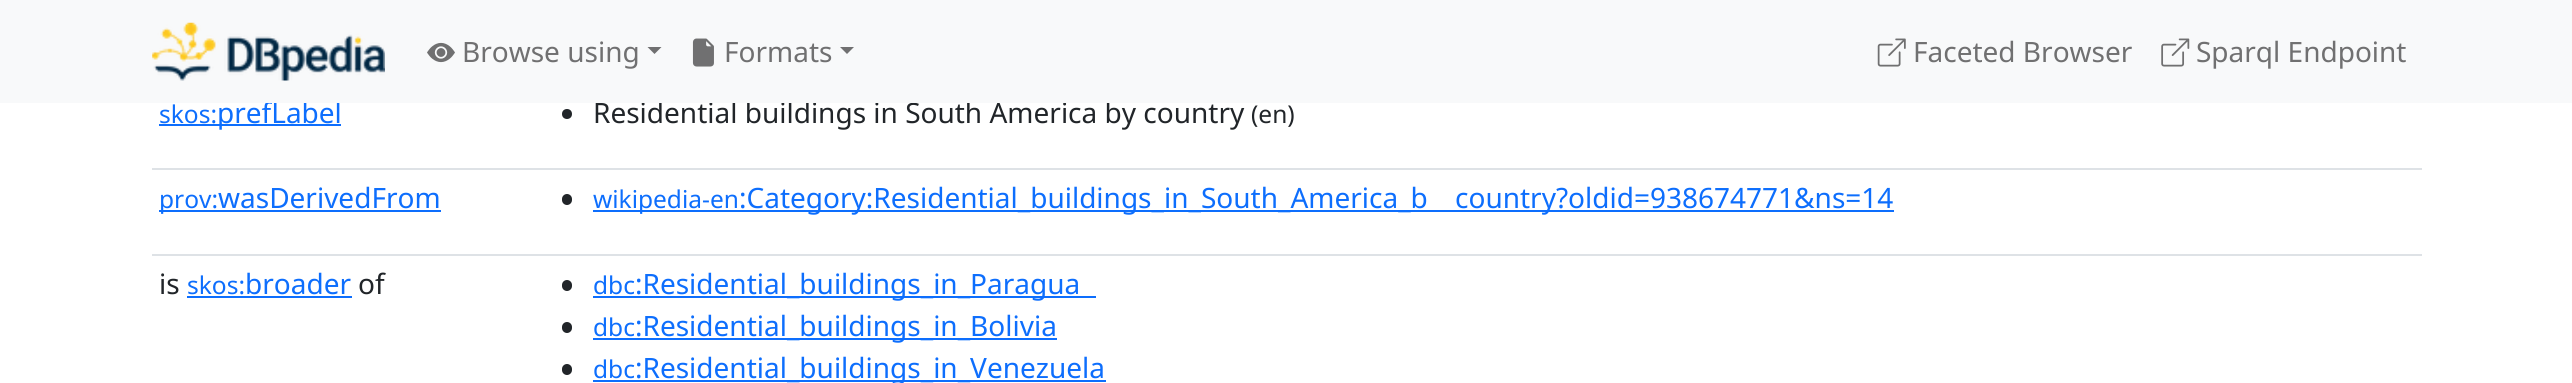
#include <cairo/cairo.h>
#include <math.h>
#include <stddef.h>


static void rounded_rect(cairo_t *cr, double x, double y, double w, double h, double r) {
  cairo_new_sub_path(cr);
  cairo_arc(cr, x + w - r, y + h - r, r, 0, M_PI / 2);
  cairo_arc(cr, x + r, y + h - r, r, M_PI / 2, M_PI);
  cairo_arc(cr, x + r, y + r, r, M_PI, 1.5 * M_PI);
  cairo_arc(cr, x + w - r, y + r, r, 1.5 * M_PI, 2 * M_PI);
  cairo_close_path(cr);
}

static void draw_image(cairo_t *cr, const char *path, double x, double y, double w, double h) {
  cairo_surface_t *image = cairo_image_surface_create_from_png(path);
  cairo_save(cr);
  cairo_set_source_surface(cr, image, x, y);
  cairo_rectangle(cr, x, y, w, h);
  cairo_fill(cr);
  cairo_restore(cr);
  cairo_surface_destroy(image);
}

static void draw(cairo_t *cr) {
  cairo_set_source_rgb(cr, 1, 1, 1);
  cairo_paint(cr);
  cairo_set_source_rgb(cr, 13 / 255.0, 110 / 255.0, 253 / 255.0);
  cairo_rectangle(cr, 159, 124, 182, 2);
  cairo_fill(cr);
  cairo_set_source_rgb(cr, 222 / 255.0, 226 / 255.0, 230 / 255.0);
  cairo_rectangle(cr, 152, 168, 2270, 2);
  cairo_fill(cr);
  cairo_set_source_rgb(cr, 33 / 255.0, 37 / 255.0, 41 / 255.0);
  cairo_arc(cr, 567, 114, 5, 0, 2 * M_PI);
  cairo_fill(cr);
  cairo_set_source_rgb(cr, 13 / 255.0, 110 / 255.0, 253 / 255.0);
  cairo_rectangle(cr, 159, 210, 282, 2);
  cairo_fill(cr);
  cairo_set_source_rgb(cr, 222 / 255.0, 226 / 255.0, 230 / 255.0);
  cairo_rectangle(cr, 152, 254, 2270, 2);
  cairo_fill(cr);
  cairo_set_source_rgb(cr, 33 / 255.0, 37 / 255.0, 41 / 255.0);
  rounded_rect(cr, 562, 194, 10, 11, 5);
  cairo_fill(cr);
  cairo_set_source_rgb(cr, 13 / 255.0, 110 / 255.0, 253 / 255.0);
  cairo_rectangle(cr, 593, 210, 1301, 2);
  cairo_fill(cr);
  cairo_rectangle(cr, 187, 296, 165, 2);
  cairo_fill(cr);
  cairo_set_source_rgb(cr, 33 / 255.0, 37 / 255.0, 41 / 255.0);
  rounded_rect(cr, 562, 280, 10, 11, 5);
  cairo_fill(cr);
  cairo_set_source_rgb(cr, 13 / 255.0, 110 / 255.0, 253 / 255.0);
  cairo_rectangle(cr, 593, 296, 503, 2);
  cairo_fill(cr);
  cairo_set_source_rgb(cr, 33 / 255.0, 37 / 255.0, 41 / 255.0);
  rounded_rect(cr, 562, 322, 10, 11, 5);
  cairo_fill(cr);
  cairo_set_source_rgb(cr, 13 / 255.0, 110 / 255.0, 253 / 255.0);
  cairo_rectangle(cr, 593, 338, 464, 2);
  cairo_fill(cr);
  cairo_set_source_rgb(cr, 33 / 255.0, 37 / 255.0, 41 / 255.0);
  rounded_rect(cr, 562, 364, 10, 11, 5);
  cairo_fill(cr);
  cairo_set_source_rgb(cr, 13 / 255.0, 110 / 255.0, 253 / 255.0);
  cairo_rectangle(cr, 593, 380, 513, 2);
  cairo_fill(cr);
  cairo_select_font_face(cr, "Noto Sans", CAIRO_FONT_SLANT_NORMAL, CAIRO_FONT_WEIGHT_NORMAL);
  cairo_set_font_size(cr, 24.5);
  cairo_move_to(cr, 159, 123);
  cairo_show_text(cr, "skos:");
  cairo_set_font_size(cr, 28);
  cairo_move_to(cr, 217, 123);
  cairo_show_text(cr, "prefLabel");
  cairo_set_source_rgb(cr, 33 / 255.0, 37 / 255.0, 41 / 255.0);
  cairo_move_to(cr, 593, 123);
  cairo_show_text(cr, "Residential buildings in South America by country");
  cairo_set_source_rgb(cr, 248 / 255.0, 249 / 255.0, 250 / 255.0);
  cairo_rectangle(cr, 0, 0, 2572, 103);
  cairo_fill(cr);
  cairo_set_source_rgb(cr, 112 / 255.0, 112 / 255.0, 113 / 255.0);
  cairo_new_path(cr);
  cairo_move_to(cr, 840, 47);
  cairo_line_to(cr, 854, 47);
  cairo_line_to(cr, 847, 54);
  cairo_close_path(cr);
  cairo_fill(cr);
  cairo_move_to(cr, 724, 62);
  cairo_show_text(cr, "Formats");
  draw_image(cr, "images/3.png", 692, 38, 22, 29);
  cairo_new_path(cr);
  cairo_move_to(cr, 647.5, 47);
  cairo_line_to(cr, 661.5, 47);
  cairo_line_to(cr, 654.5, 54);
  cairo_close_path(cr);
  cairo_fill(cr);
  cairo_move_to(cr, 462, 62);
  cairo_show_text(cr, "Browse using");
  draw_image(cr, "images/2.png", 427, 42, 28, 21);
  cairo_move_to(cr, 2196, 62);
  cairo_show_text(cr, "Sparql Endpoint");
  draw_image(cr, "images/5.png", 2161, 38, 29, 29);
  cairo_move_to(cr, 1913, 62);
  cairo_show_text(cr, "Faceted Browser");
  draw_image(cr, "images/4.png", 1877, 38, 29, 29);
  draw_image(cr, "images/1.png", 152, 22, 233, 59);
  cairo_set_font_size(cr, 24.5);
  cairo_set_source_rgb(cr, 33 / 255.0, 37 / 255.0, 41 / 255.0);
  cairo_move_to(cr, 1251, 123);
  cairo_show_text(cr, "(en)");
  cairo_set_source_rgb(cr, 13 / 255.0, 110 / 255.0, 253 / 255.0);
  cairo_move_to(cr, 159, 208);
  cairo_show_text(cr, "prov:");
  cairo_set_font_size(cr, 28);
  cairo_move_to(cr, 218, 208);
  cairo_show_text(cr, "wasDerivedFrom");
  cairo_set_font_size(cr, 24.5);
  cairo_move_to(cr, 593, 208);
  cairo_show_text(cr, "wikipedia-en");
  cairo_set_font_size(cr, 28);
  cairo_move_to(cr, 739, 208);
  cairo_show_text(cr, ":Category:Residential_buildings_in_South_America_b");
  cairo_move_to(cr, 1455, 208);
  cairo_show_text(cr, "country?oldid=938674771&ns=14");
  cairo_set_source_rgb(cr, 33 / 255.0, 37 / 255.0, 41 / 255.0);
  cairo_move_to(cr, 159, 294);
  cairo_show_text(cr, "is");
  cairo_set_font_size(cr, 24.5);
  cairo_set_source_rgb(cr, 13 / 255.0, 110 / 255.0, 253 / 255.0);
  cairo_move_to(cr, 187, 294);
  cairo_show_text(cr, "skos:");
  cairo_set_font_size(cr, 28);
  cairo_move_to(cr, 245, 294);
  cairo_show_text(cr, "broader");
  cairo_set_source_rgb(cr, 33 / 255.0, 37 / 255.0, 41 / 255.0);
  cairo_move_to(cr, 358, 294);
  cairo_show_text(cr, "of");
  cairo_set_font_size(cr, 24.5);
  cairo_set_source_rgb(cr, 13 / 255.0, 110 / 255.0, 253 / 255.0);
  cairo_move_to(cr, 593, 294);
  cairo_show_text(cr, "dbc");
  cairo_set_font_size(cr, 28);
  cairo_move_to(cr, 635, 294);
  cairo_show_text(cr, ":Residential_buildings_in_Paragua");
  cairo_set_font_size(cr, 24.5);
  cairo_move_to(cr, 593, 336);
  cairo_show_text(cr, "dbc");
  cairo_set_font_size(cr, 28);
  cairo_move_to(cr, 635, 336);
  cairo_show_text(cr, ":Residential_buildings_in_Bolivia");
  cairo_set_font_size(cr, 24.5);
  cairo_move_to(cr, 593, 378);
  cairo_show_text(cr, "dbc");
  cairo_set_font_size(cr, 28);
  cairo_move_to(cr, 635, 378);
  cairo_show_text(cr, ":Residential_buildings_in_Venezuela");
}

int main(void) {
  cairo_surface_t *surface = cairo_image_surface_create(CAIRO_FORMAT_RGB24, 2572, 383);
  cairo_t *cr = cairo_create(surface);
  cairo_font_options_t *options = cairo_font_options_create();
  cairo_font_options_set_hint_metrics(options, CAIRO_HINT_METRICS_OFF);
  cairo_font_options_set_hint_style(options, CAIRO_HINT_STYLE_NONE);
  cairo_set_font_options(cr, options);
  cairo_set_miter_limit(cr, 4);
  draw(cr);
  cairo_surface_write_to_png(surface, "out.png");
  cairo_font_options_destroy(options);
  cairo_destroy(cr);
  cairo_surface_destroy(surface);
  return 0;
}
